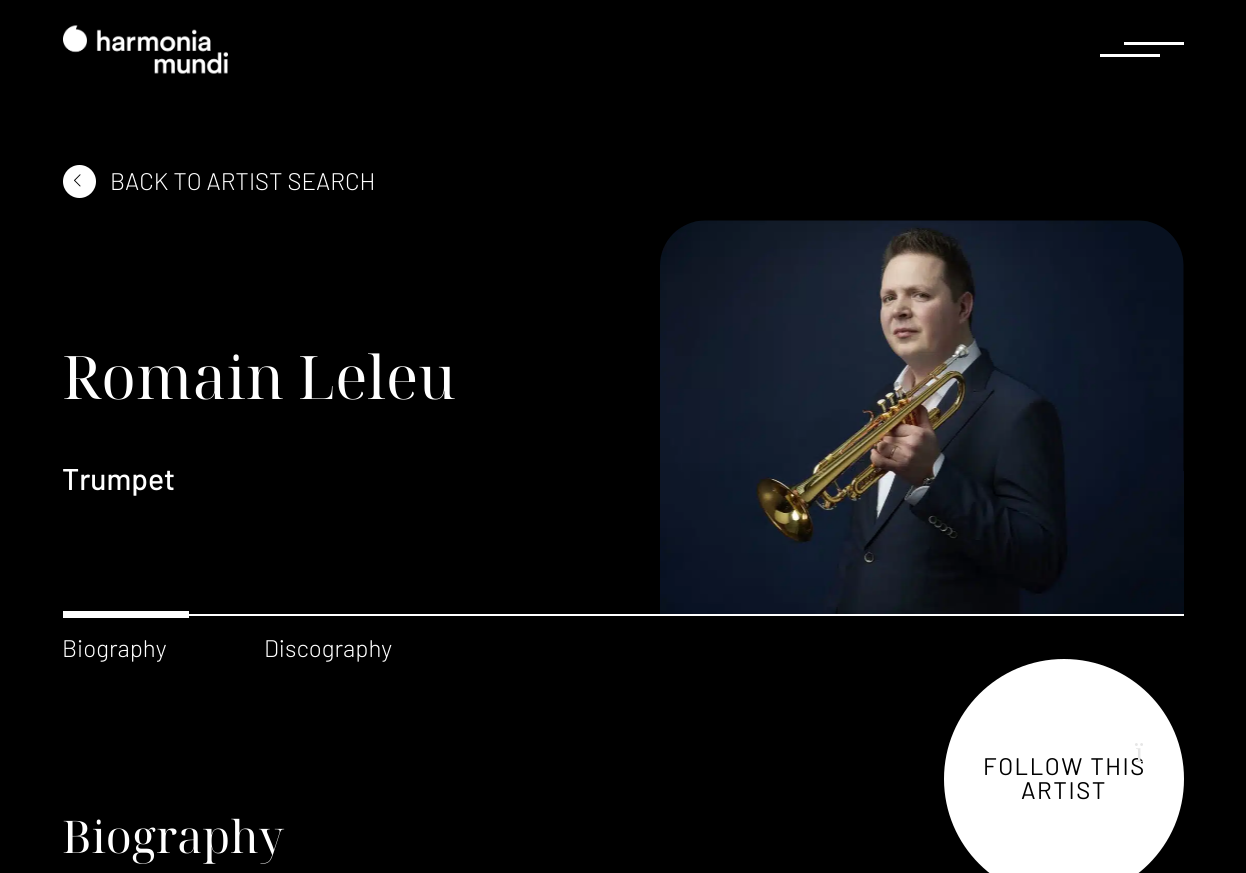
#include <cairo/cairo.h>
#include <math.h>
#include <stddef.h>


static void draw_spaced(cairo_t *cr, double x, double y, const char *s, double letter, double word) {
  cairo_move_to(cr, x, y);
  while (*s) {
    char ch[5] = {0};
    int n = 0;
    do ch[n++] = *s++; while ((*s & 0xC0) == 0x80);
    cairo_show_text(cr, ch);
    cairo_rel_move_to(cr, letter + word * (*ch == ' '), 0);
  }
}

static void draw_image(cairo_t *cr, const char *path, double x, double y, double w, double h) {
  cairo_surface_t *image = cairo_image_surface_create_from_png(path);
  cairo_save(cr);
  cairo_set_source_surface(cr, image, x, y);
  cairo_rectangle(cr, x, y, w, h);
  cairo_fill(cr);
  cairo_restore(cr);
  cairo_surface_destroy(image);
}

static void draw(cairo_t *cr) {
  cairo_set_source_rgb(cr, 0, 0, 0);
  cairo_paint(cr);
  draw_image(cr, "images/1.png", 63, 25, 165, 49);
  cairo_set_source_rgb(cr, 1, 1, 1);
  cairo_rectangle(cr, 1124, 42, 60, 3);
  cairo_fill(cr);
  cairo_rectangle(cr, 1100, 54, 60, 3);
  cairo_fill(cr);
  cairo_arc(cr, 79.5, 181.5, 15.5, 0, 2 * M_PI);
  cairo_fill_preserve(cr);
  cairo_stroke(cr);
  draw_image(cr, "images/2.png", 74, 174, 7, 13);
  draw_image(cr, "images/3.png", 660, 220, 524, 394);
  cairo_arc(cr, 1064, 779, 120, 0, 2 * M_PI);
  cairo_fill(cr);
  cairo_rectangle(cr, 189, 614, 995, 2);
  cairo_fill(cr);
  cairo_rectangle(cr, 63, 611, 126, 7);
  cairo_fill(cr);
  cairo_select_font_face(cr, "Barlow Light", CAIRO_FONT_SLANT_NORMAL, CAIRO_FONT_WEIGHT_NORMAL);
  cairo_set_font_size(cr, 24);
  cairo_move_to(cr, 110, 190);
  cairo_show_text(cr, "BACK TO ARTIST SEARCH");
  cairo_select_font_face(cr, "Noto Serif Display", CAIRO_FONT_SLANT_NORMAL, CAIRO_FONT_WEIGHT_NORMAL);
  cairo_set_font_size(cr, 60);
  cairo_move_to(cr, 62, 399);
  cairo_show_text(cr, "Romain Leleu");
  cairo_select_font_face(cr, "Barlow Medium", CAIRO_FONT_SLANT_NORMAL, CAIRO_FONT_WEIGHT_NORMAL);
  cairo_set_font_size(cr, 30);
  cairo_move_to(cr, 62, 490);
  cairo_show_text(cr, "Trumpet");
  cairo_select_font_face(cr, "Barlow", CAIRO_FONT_SLANT_NORMAL, CAIRO_FONT_WEIGHT_NORMAL);
  cairo_set_font_size(cr, 24);
  cairo_set_source_rgb(cr, 0, 0, 0);
  draw_spaced(cr, 983, 775, "FOLLOW THIS", 1.5, 0);
  draw_spaced(cr, 1021, 799, "ARTIST", 1.5, 0);
  cairo_select_font_face(cr, "Barlow Light", CAIRO_FONT_SLANT_NORMAL, CAIRO_FONT_WEIGHT_NORMAL);
  cairo_set_source_rgb(cr, 1, 1, 1);
  cairo_move_to(cr, 62, 657);
  cairo_show_text(cr, "Biography");
  cairo_move_to(cr, 264, 657);
  cairo_show_text(cr, "Discography");
  cairo_select_font_face(cr, "Noto Serif Display", CAIRO_FONT_SLANT_NORMAL, CAIRO_FONT_WEIGHT_NORMAL);
  cairo_set_font_size(cr, 45);
  cairo_move_to(cr, 62, 853);
  cairo_show_text(cr, "Biography");
  cairo_select_font_face(cr, "Liberation Serif", CAIRO_FONT_SLANT_NORMAL, CAIRO_FONT_WEIGHT_NORMAL);
  cairo_set_font_size(cr, 30);
  cairo_set_source_rgb(cr, 230 / 255.0, 230 / 255.0, 230 / 255.0);
  cairo_move_to(cr, 1135, 762);
  cairo_show_text(cr, "ï");
}

int main(void) {
  cairo_surface_t *surface = cairo_image_surface_create(CAIRO_FORMAT_RGB24, 1246, 873);
  cairo_t *cr = cairo_create(surface);
  cairo_font_options_t *options = cairo_font_options_create();
  cairo_font_options_set_hint_metrics(options, CAIRO_HINT_METRICS_OFF);
  cairo_font_options_set_hint_style(options, CAIRO_HINT_STYLE_NONE);
  cairo_set_font_options(cr, options);
  cairo_set_miter_limit(cr, 4);
  draw(cr);
  cairo_surface_write_to_png(surface, "out.png");
  cairo_font_options_destroy(options);
  cairo_destroy(cr);
  cairo_surface_destroy(surface);
  return 0;
}
